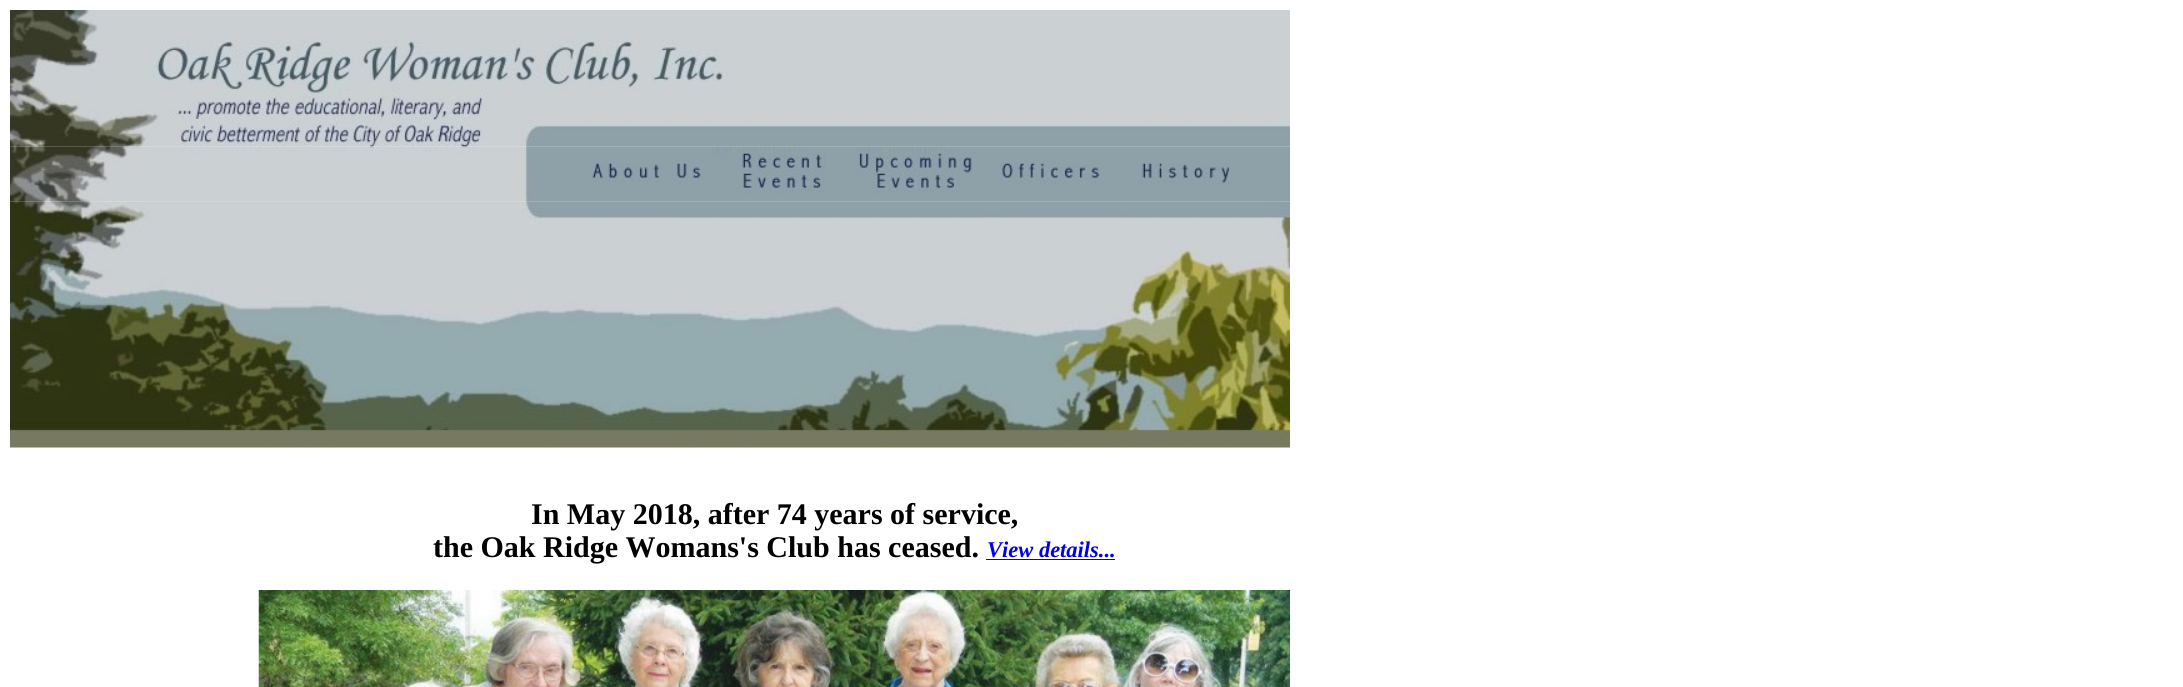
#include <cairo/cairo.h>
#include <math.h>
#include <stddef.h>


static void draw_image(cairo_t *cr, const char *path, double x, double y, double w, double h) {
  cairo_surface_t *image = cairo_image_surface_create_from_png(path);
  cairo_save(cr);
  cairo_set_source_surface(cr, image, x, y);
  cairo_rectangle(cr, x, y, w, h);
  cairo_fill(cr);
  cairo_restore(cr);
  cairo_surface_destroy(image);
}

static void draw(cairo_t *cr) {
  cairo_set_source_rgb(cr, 1, 1, 1);
  cairo_paint(cr);
  draw_image(cr, "images/2.png", 10, 146, 1280, 56);
  draw_image(cr, "images/1.png", 10, 10, 1280, 137);
  draw_image(cr, "images/3.png", 583, 163, 118, 21);
  draw_image(cr, "images/4.png", 738, 153, 88, 41);
  draw_image(cr, "images/5.png", 856, 153, 116, 41);
  draw_image(cr, "images/6.png", 998, 163, 103, 21);
  draw_image(cr, "images/7.png", 1140, 163, 93, 21);
  draw_image(cr, "images/8.png", 10, 201, 1280, 247);
  cairo_set_source_rgb(cr, 0, 0, 238 / 255.0);
  cairo_rectangle(cr, 986, 559, 129, 1);
  cairo_fill(cr);
  draw_image(cr, "images/9.png", 258, 590, 1032, 97);
  cairo_select_font_face(cr, "Liberation Serif", CAIRO_FONT_SLANT_NORMAL, CAIRO_FONT_WEIGHT_BOLD);
  cairo_set_font_size(cr, 30);
  cairo_set_source_rgb(cr, 0, 0, 0);
  cairo_move_to(cr, 531, 524);
  cairo_show_text(cr, "In May 2018, after 74 years of service,");
  cairo_move_to(cr, 433, 557);
  cairo_show_text(cr, "the Oak Ridge Womans's Club has ceased.");
  cairo_select_font_face(cr, "Liberation Serif", CAIRO_FONT_SLANT_ITALIC, CAIRO_FONT_WEIGHT_BOLD);
  cairo_set_font_size(cr, 22.5);
  cairo_set_source_rgb(cr, 0, 0, 238 / 255.0);
  cairo_move_to(cr, 987, 557);
  cairo_show_text(cr, "View details...");
}

int main(void) {
  cairo_surface_t *surface = cairo_image_surface_create(CAIRO_FORMAT_RGB24, 2183, 687);
  cairo_t *cr = cairo_create(surface);
  cairo_font_options_t *options = cairo_font_options_create();
  cairo_font_options_set_hint_metrics(options, CAIRO_HINT_METRICS_OFF);
  cairo_font_options_set_hint_style(options, CAIRO_HINT_STYLE_NONE);
  cairo_set_font_options(cr, options);
  cairo_set_miter_limit(cr, 4);
  draw(cr);
  cairo_surface_write_to_png(surface, "out.png");
  cairo_font_options_destroy(options);
  cairo_destroy(cr);
  cairo_surface_destroy(surface);
  return 0;
}
